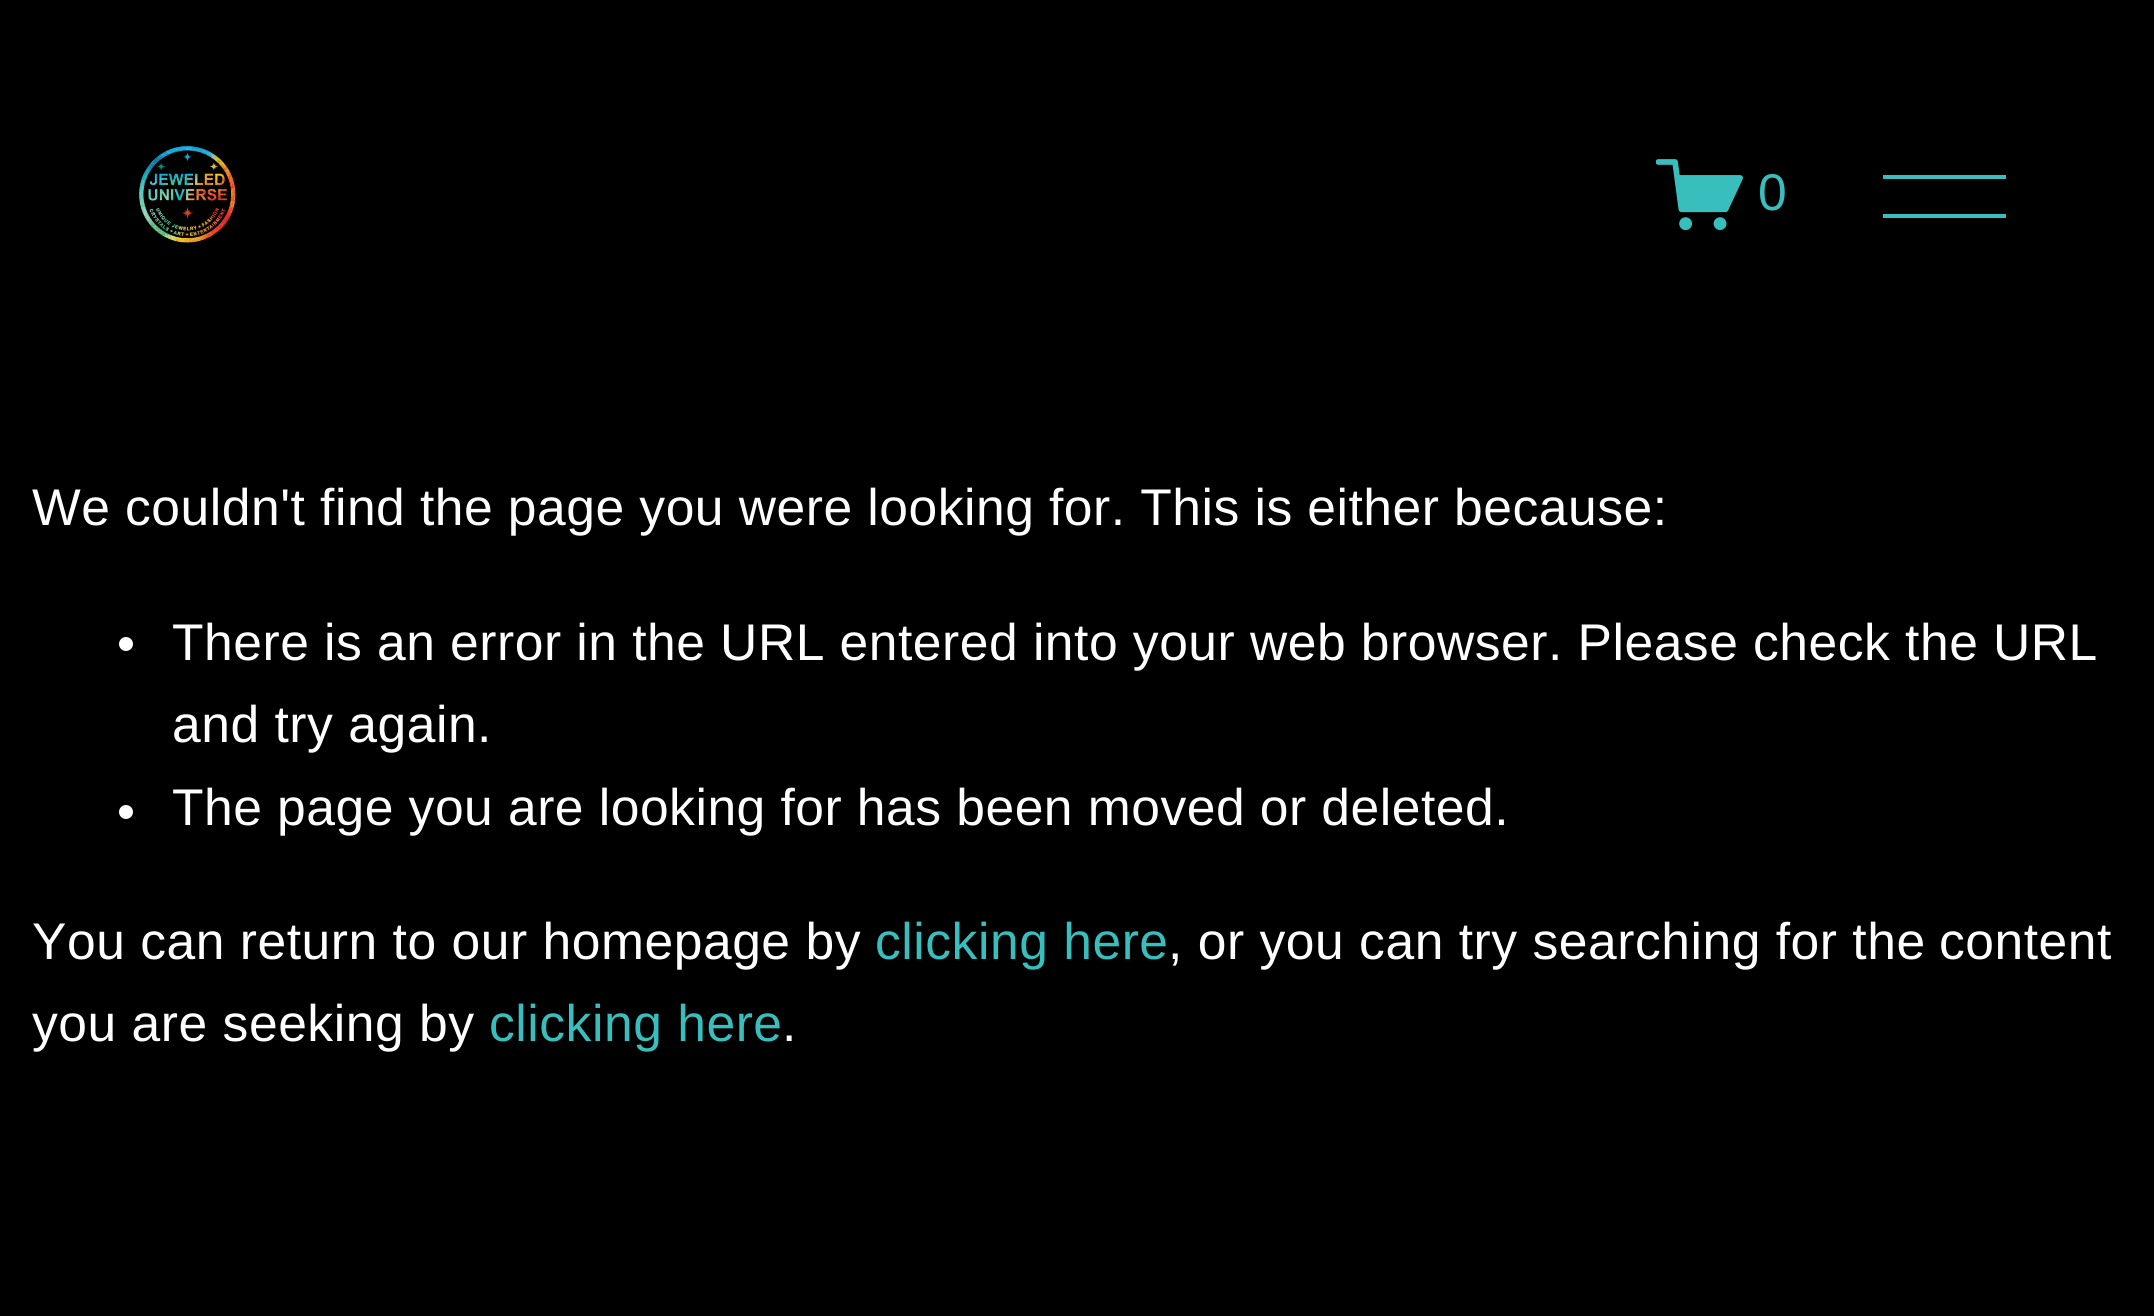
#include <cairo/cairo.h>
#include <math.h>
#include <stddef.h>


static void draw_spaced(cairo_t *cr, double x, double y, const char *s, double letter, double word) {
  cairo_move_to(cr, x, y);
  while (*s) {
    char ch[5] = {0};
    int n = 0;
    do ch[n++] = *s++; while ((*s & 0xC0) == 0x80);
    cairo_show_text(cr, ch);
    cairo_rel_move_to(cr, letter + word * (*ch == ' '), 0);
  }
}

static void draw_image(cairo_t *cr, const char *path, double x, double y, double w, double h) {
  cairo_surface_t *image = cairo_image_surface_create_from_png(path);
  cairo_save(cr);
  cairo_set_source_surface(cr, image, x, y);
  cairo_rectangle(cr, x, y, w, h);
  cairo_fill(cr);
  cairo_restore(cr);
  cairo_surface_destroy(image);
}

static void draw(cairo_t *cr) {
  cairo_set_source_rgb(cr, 0, 0, 0);
  cairo_paint(cr);
  draw_image(cr, "images/1.png", 138, 145, 98, 98);
  draw_image(cr, "images/2.png", 1656, 159, 87, 72);
  cairo_set_source_rgb(cr, 55 / 255.0, 190 / 255.0, 189 / 255.0);
  cairo_rectangle(cr, 1883, 175, 123, 4);
  cairo_fill(cr);
  cairo_rectangle(cr, 1883, 214, 123, 4);
  cairo_fill(cr);
  cairo_set_source_rgb(cr, 1, 1, 1);
  cairo_arc(cr, 126, 644, 7, 0, 2 * M_PI);
  cairo_fill(cr);
  cairo_arc(cr, 126, 812, 7, 0, 2 * M_PI);
  cairo_fill(cr);
  cairo_select_font_face(cr, "Liberation Sans", CAIRO_FONT_SLANT_NORMAL, CAIRO_FONT_WEIGHT_NORMAL);
  cairo_set_font_size(cr, 51.6);
  cairo_set_source_rgb(cr, 55 / 255.0, 190 / 255.0, 189 / 255.0);
  draw_spaced(cr, 1758, 210, "0", 0.52, 0);
  cairo_set_source_rgb(cr, 1, 1, 1);
  draw_spaced(cr, 32, 525, "We couldn't find the page you were looking for. This is either because:", 0.52, -0.25);
  draw_spaced(cr, 172, 660, "There is an error in the URL entered into your web browser. Please check the URL", 0.52, -0.2);
  draw_spaced(cr, 172, 742, "and try again.", 0.52, 0);
  draw_spaced(cr, 172, 825, "The page you are looking for has been moved or deleted.", 0.52, -0.25);
  draw_spaced(cr, 32, 959, "You can return to our homepage by", 0.52, 0);
  cairo_set_source_rgb(cr, 55 / 255.0, 190 / 255.0, 189 / 255.0);
  draw_spaced(cr, 875, 959, "clicking here", 0.52, 0);
  cairo_set_source_rgb(cr, 1, 1, 1);
  draw_spaced(cr, 1168, 959, ", or you can try searching for the", 0.52, 0);
  draw_spaced(cr, 1939, 959, "content", 0.52, 0);
  draw_spaced(cr, 32, 1041, "you are seeking by", 0.52, 0);
  cairo_set_source_rgb(cr, 55 / 255.0, 190 / 255.0, 189 / 255.0);
  draw_spaced(cr, 489, 1041, "clicking here", 0.52, 0);
  cairo_set_source_rgb(cr, 1, 1, 1);
  draw_spaced(cr, 782, 1041, ".", 0.52, 0);
}

int main(void) {
  cairo_surface_t *surface = cairo_image_surface_create(CAIRO_FORMAT_RGB24, 2154, 1316);
  cairo_t *cr = cairo_create(surface);
  cairo_font_options_t *options = cairo_font_options_create();
  cairo_font_options_set_hint_metrics(options, CAIRO_HINT_METRICS_OFF);
  cairo_font_options_set_hint_style(options, CAIRO_HINT_STYLE_NONE);
  cairo_set_font_options(cr, options);
  cairo_set_miter_limit(cr, 4);
  draw(cr);
  cairo_surface_write_to_png(surface, "out.png");
  cairo_font_options_destroy(options);
  cairo_destroy(cr);
  cairo_surface_destroy(surface);
  return 0;
}
